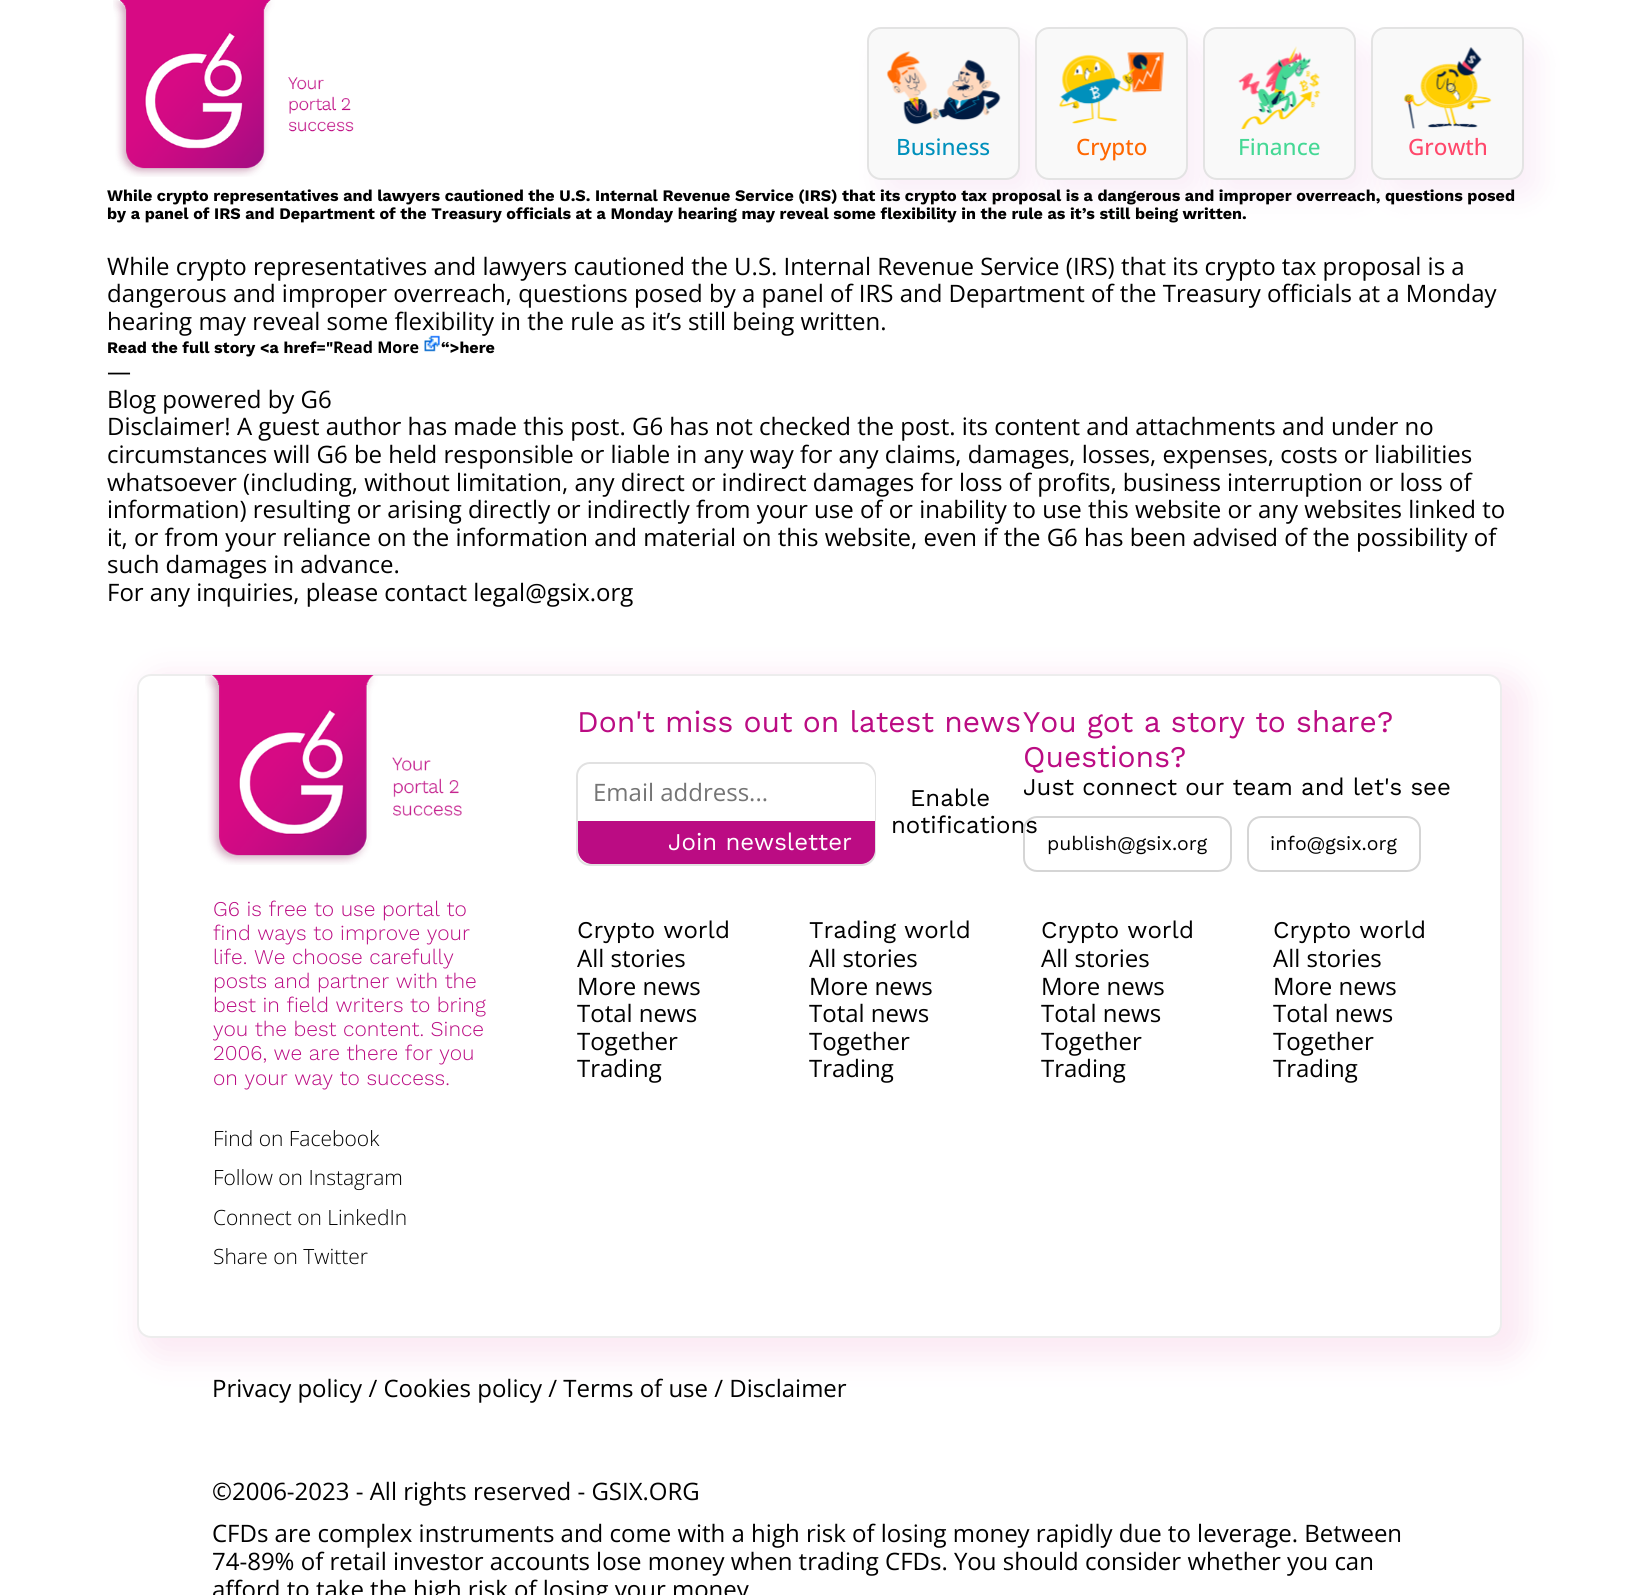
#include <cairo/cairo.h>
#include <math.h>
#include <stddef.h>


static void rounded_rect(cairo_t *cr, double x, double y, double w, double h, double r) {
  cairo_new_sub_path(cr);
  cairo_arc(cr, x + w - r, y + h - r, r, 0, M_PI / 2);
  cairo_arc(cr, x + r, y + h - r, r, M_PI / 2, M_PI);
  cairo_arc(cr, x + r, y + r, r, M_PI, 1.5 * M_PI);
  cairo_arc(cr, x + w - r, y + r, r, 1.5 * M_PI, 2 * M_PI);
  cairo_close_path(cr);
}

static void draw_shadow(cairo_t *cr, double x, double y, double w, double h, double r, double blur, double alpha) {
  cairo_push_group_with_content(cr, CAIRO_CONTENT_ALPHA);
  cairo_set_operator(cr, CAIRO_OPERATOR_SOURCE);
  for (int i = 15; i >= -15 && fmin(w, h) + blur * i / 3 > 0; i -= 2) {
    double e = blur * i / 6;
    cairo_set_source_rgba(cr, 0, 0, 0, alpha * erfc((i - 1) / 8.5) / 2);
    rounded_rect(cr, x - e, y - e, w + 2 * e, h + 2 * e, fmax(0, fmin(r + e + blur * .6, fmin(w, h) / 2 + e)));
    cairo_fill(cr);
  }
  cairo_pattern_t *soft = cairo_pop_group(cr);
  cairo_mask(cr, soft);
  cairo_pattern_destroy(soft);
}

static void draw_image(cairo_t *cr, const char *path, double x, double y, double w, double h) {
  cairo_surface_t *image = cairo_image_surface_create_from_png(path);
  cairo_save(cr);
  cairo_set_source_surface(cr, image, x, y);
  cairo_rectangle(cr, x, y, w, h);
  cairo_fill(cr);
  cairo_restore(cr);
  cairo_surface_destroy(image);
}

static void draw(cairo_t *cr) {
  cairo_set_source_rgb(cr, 1, 1, 1);
  cairo_paint(cr);
  draw_image(cr, "images/1.png", 113, 0, 241, 177);
  cairo_set_source_rgb(cr, 185 / 255.0, 12 / 255.0, 153 / 255.0);
  draw_shadow(cr, 881, 44, 153, 153, 14, 15, 0.07);
  cairo_set_source_rgb(cr, 249 / 255.0, 249 / 255.0, 249 / 255.0);
  rounded_rect(cr, 868, 28, 151, 151, 13);
  cairo_fill_preserve(cr);
  cairo_set_source_rgb(cr, 227 / 255.0, 227 / 255.0, 227 / 255.0);
  cairo_stroke(cr);
  draw_image(cr, "images/2.png", 886, 51, 115, 74);
  cairo_set_source_rgb(cr, 185 / 255.0, 12 / 255.0, 153 / 255.0);
  draw_shadow(cr, 1049, 44, 153, 153, 14, 15, 0.07);
  cairo_set_source_rgb(cr, 249 / 255.0, 249 / 255.0, 249 / 255.0);
  rounded_rect(cr, 1036, 28, 151, 151, 13);
  cairo_fill_preserve(cr);
  cairo_set_source_rgb(cr, 227 / 255.0, 227 / 255.0, 227 / 255.0);
  cairo_stroke(cr);
  draw_image(cr, "images/3.png", 1059, 52, 106, 72);
  cairo_set_source_rgb(cr, 185 / 255.0, 12 / 255.0, 153 / 255.0);
  draw_shadow(cr, 1217, 44, 153, 153, 14, 15, 0.07);
  cairo_set_source_rgb(cr, 249 / 255.0, 249 / 255.0, 249 / 255.0);
  rounded_rect(cr, 1204, 28, 151, 151, 13);
  cairo_fill_preserve(cr);
  cairo_set_source_rgb(cr, 227 / 255.0, 227 / 255.0, 227 / 255.0);
  cairo_stroke(cr);
  draw_image(cr, "images/4.png", 1238, 46, 83, 83);
  cairo_set_source_rgb(cr, 185 / 255.0, 12 / 255.0, 153 / 255.0);
  draw_shadow(cr, 1385, 44, 153, 153, 14, 15, 0.07);
  cairo_set_source_rgb(cr, 249 / 255.0, 249 / 255.0, 249 / 255.0);
  rounded_rect(cr, 1372, 28, 151, 151, 13);
  cairo_fill_preserve(cr);
  cairo_set_source_rgb(cr, 227 / 255.0, 227 / 255.0, 227 / 255.0);
  cairo_stroke(cr);
  draw_image(cr, "images/5.png", 1403, 47, 89, 82);
  cairo_set_source_rgb(cr, 215 / 255.0, 10 / 255.0, 132 / 255.0);
  draw_shadow(cr, 140, 674, 1386, 685, 24, 15, 0.09);
  cairo_set_source_rgb(cr, 1, 1, 1);
  rounded_rect(cr, 138, 675, 1363, 662, 13);
  cairo_fill_preserve(cr);
  cairo_set_source_rgb(cr, 237 / 255.0, 237 / 255.0, 237 / 255.0);
  cairo_stroke(cr);
  draw_image(cr, "images/7.png", 205, 675, 257, 190);
  rounded_rect(cr, 577, 763, 298, 102, 13);
  cairo_set_source_rgb(cr, 225 / 255.0, 225 / 255.0, 225 / 255.0);
  cairo_stroke(cr);
  cairo_set_source_rgb(cr, 1, 1, 1);
  cairo_new_path(cr);
  cairo_move_to(cr, 592, 764);
  cairo_line_to(cr, 861, 764);
  cairo_curve_to(cr, 868.5, 764, 875, 770.5, 875, 778);
  cairo_line_to(cr, 875, 821);
  cairo_line_to(cr, 578, 821);
  cairo_line_to(cr, 578, 778);
  cairo_curve_to(cr, 578, 770.5, 584.5, 764, 592, 764);
  cairo_close_path(cr);
  cairo_fill(cr);
  cairo_set_source_rgb(cr, 187 / 255.0, 12 / 255.0, 131 / 255.0);
  cairo_new_path(cr);
  cairo_move_to(cr, 578, 821);
  cairo_line_to(cr, 875, 821);
  cairo_line_to(cr, 875, 850);
  cairo_curve_to(cr, 875, 857.5, 868.5, 864, 861, 864);
  cairo_line_to(cr, 592, 864);
  cairo_curve_to(cr, 584.5, 864, 578, 857.5, 578, 850);
  cairo_close_path(cr);
  cairo_fill(cr);
  rounded_rect(cr, 1248, 817, 172, 54, 13);
  cairo_set_source_rgb(cr, 213 / 255.0, 213 / 255.0, 213 / 255.0);
  cairo_stroke(cr);
  cairo_select_font_face(cr, "Open Sans Medium", CAIRO_FONT_SLANT_NORMAL, CAIRO_FONT_WEIGHT_NORMAL);
  cairo_set_font_size(cr, 22.5);
  cairo_set_source_rgb(cr, 0, 144 / 255.0, 188 / 255.0);
  cairo_move_to(cr, 896, 155);
  cairo_show_text(cr, "Business");
  cairo_set_source_rgb(cr, 1, 103 / 255.0, 0);
  cairo_move_to(cr, 1076, 155);
  cairo_show_text(cr, "Crypto");
  cairo_set_source_rgb(cr, 69 / 255.0, 216 / 255.0, 149 / 255.0);
  cairo_move_to(cr, 1238, 155);
  cairo_show_text(cr, "Finance");
  cairo_set_source_rgb(cr, 1, 72 / 255.0, 107 / 255.0);
  cairo_move_to(cr, 1408, 155);
  cairo_show_text(cr, "Growth");
  cairo_select_font_face(cr, "Work Sans", CAIRO_FONT_SLANT_NORMAL, CAIRO_FONT_WEIGHT_BOLD);
  cairo_set_font_size(cr, 16.08);
  cairo_set_source_rgb(cr, 0, 0, 0);
  cairo_move_to(cr, 107, 201);
  cairo_show_text(cr, "While crypto representatives and lawyers cautioned the U.S. Internal Revenue Service (IRS) that its crypto tax proposal is a dangerous and improper overreach, questions posed");
  cairo_move_to(cr, 107, 219);
  cairo_show_text(cr, "by a panel of IRS and Department of the Treasury officials at a Monday hearing may reveal some flexibility in the rule as it’s still being written.");
  cairo_select_font_face(cr, "Open Sans", CAIRO_FONT_SLANT_NORMAL, CAIRO_FONT_WEIGHT_NORMAL);
  cairo_set_font_size(cr, 24);
  cairo_move_to(cr, 107, 275);
  cairo_show_text(cr, "While crypto representatives and lawyers cautioned the U.S. Internal Revenue Service (IRS) that its crypto tax proposal is a");
  cairo_move_to(cr, 107, 302);
  cairo_show_text(cr, "dangerous and improper overreach, questions posed by a panel of IRS and Department of the Treasury officials at a Monday");
  cairo_move_to(cr, 107, 330);
  cairo_show_text(cr, "hearing may reveal some flexibility in the rule as it’s still being written.");
  cairo_select_font_face(cr, "Work Sans", CAIRO_FONT_SLANT_NORMAL, CAIRO_FONT_WEIGHT_BOLD);
  cairo_set_font_size(cr, 16.08);
  cairo_move_to(cr, 107, 353);
  cairo_show_text(cr, "Read the full story <a href=\"");
  cairo_select_font_face(cr, "Open Sans", CAIRO_FONT_SLANT_NORMAL, CAIRO_FONT_WEIGHT_BOLD);
  cairo_move_to(cr, 333, 353);
  cairo_show_text(cr, "Read More");
  draw_image(cr, "images/6.png", 424, 335, 16, 17);
  cairo_select_font_face(cr, "Work Sans", CAIRO_FONT_SLANT_NORMAL, CAIRO_FONT_WEIGHT_BOLD);
  cairo_move_to(cr, 441, 353);
  cairo_show_text(cr, "“>here");
  cairo_select_font_face(cr, "Open Sans", CAIRO_FONT_SLANT_NORMAL, CAIRO_FONT_WEIGHT_NORMAL);
  cairo_set_font_size(cr, 24);
  cairo_move_to(cr, 107, 380);
  cairo_show_text(cr, "—");
  cairo_move_to(cr, 107, 408);
  cairo_show_text(cr, "Blog powered by G6");
  cairo_move_to(cr, 107, 435);
  cairo_show_text(cr, "Disclaimer! A guest author has made this post. G6 has not checked the post. its content and attachments and under no");
  cairo_move_to(cr, 107, 463);
  cairo_show_text(cr, "circumstances will G6 be held responsible or liable in any way for any claims, damages, losses, expenses, costs or liabilities");
  cairo_move_to(cr, 107, 491);
  cairo_show_text(cr, "whatsoever (including, without limitation, any direct or indirect damages for loss of profits, business interruption or loss of");
  cairo_move_to(cr, 107, 518);
  cairo_show_text(cr, "information) resulting or arising directly or indirectly from your use of or inability to use this website or any websites linked to");
  cairo_move_to(cr, 107, 546);
  cairo_show_text(cr, "it, or from your reliance on the information and material on this website, even if the G6 has been advised of the possibility of");
  cairo_move_to(cr, 107, 573);
  cairo_show_text(cr, "such damages in advance.");
  cairo_move_to(cr, 107, 601);
  cairo_show_text(cr, "For any inquiries, please contact legal@gsix.org");
  cairo_select_font_face(cr, "Work Sans Light", CAIRO_FONT_SLANT_NORMAL, CAIRO_FONT_WEIGHT_NORMAL);
  cairo_set_font_size(cr, 21);
  cairo_set_source_rgb(cr, 187 / 255.0, 12 / 255.0, 131 / 255.0);
  cairo_move_to(cr, 213, 916);
  cairo_show_text(cr, "G6 is free to use portal to");
  cairo_move_to(cr, 213, 940);
  cairo_show_text(cr, "find ways to improve your");
  cairo_move_to(cr, 213, 964);
  cairo_show_text(cr, "life. We choose carefully");
  cairo_move_to(cr, 213, 988);
  cairo_show_text(cr, "posts and partner with the");
  cairo_move_to(cr, 213, 1012);
  cairo_show_text(cr, "best in field writers to bring");
  cairo_move_to(cr, 213, 1036);
  cairo_show_text(cr, "you the best content. Since");
  cairo_move_to(cr, 213, 1060);
  cairo_show_text(cr, "2006, we are there for you");
  cairo_move_to(cr, 213, 1085);
  cairo_show_text(cr, "on your way to success.");
  cairo_select_font_face(cr, "Open Sans Light", CAIRO_FONT_SLANT_NORMAL, CAIRO_FONT_WEIGHT_NORMAL);
  cairo_set_source_rgb(cr, 0, 0, 0);
  cairo_move_to(cr, 213, 1146);
  cairo_show_text(cr, "Find on Facebook");
  cairo_move_to(cr, 213, 1185);
  cairo_show_text(cr, "Follow on Instagram");
  cairo_move_to(cr, 213, 1225);
  cairo_show_text(cr, "Connect on LinkedIn");
  cairo_move_to(cr, 213, 1264);
  cairo_show_text(cr, "Share on Twitter");
  cairo_select_font_face(cr, "Work Sans", CAIRO_FONT_SLANT_NORMAL, CAIRO_FONT_WEIGHT_NORMAL);
  cairo_set_font_size(cr, 30);
  cairo_set_source_rgb(cr, 187 / 255.0, 12 / 255.0, 131 / 255.0);
  cairo_move_to(cr, 577, 732);
  cairo_show_text(cr, "Don't miss out on latest news");
  cairo_select_font_face(cr, "Open Sans", CAIRO_FONT_SLANT_NORMAL, CAIRO_FONT_WEIGHT_NORMAL);
  cairo_set_font_size(cr, 24);
  cairo_set_source_rgb(cr, 117 / 255.0, 117 / 255.0, 117 / 255.0);
  cairo_move_to(cr, 593, 801);
  cairo_show_text(cr, "Email address...");
  cairo_select_font_face(cr, "Work Sans", CAIRO_FONT_SLANT_NORMAL, CAIRO_FONT_WEIGHT_NORMAL);
  cairo_set_source_rgb(cr, 1, 1, 1);
  cairo_move_to(cr, 668, 850);
  cairo_show_text(cr, "Join newsletter");
  cairo_set_source_rgb(cr, 0, 0, 0);
  cairo_move_to(cr, 910, 806);
  cairo_show_text(cr, "Enable");
  cairo_move_to(cr, 891, 833);
  cairo_show_text(cr, "notifications");
  cairo_set_font_size(cr, 30);
  cairo_set_source_rgb(cr, 187 / 255.0, 12 / 255.0, 131 / 255.0);
  cairo_move_to(cr, 1023, 732);
  cairo_show_text(cr, "You got a story to share?");
  cairo_move_to(cr, 1023, 767);
  cairo_show_text(cr, "Questions?");
  cairo_set_font_size(cr, 24);
  cairo_set_source_rgb(cr, 0, 0, 0);
  cairo_move_to(cr, 1023, 795);
  cairo_show_text(cr, "Just connect our team and let's see");
  rounded_rect(cr, 1024, 817, 207, 54, 13);
  cairo_set_source_rgb(cr, 213 / 255.0, 213 / 255.0, 213 / 255.0);
  cairo_stroke(cr);
  cairo_set_font_size(cr, 19.5);
  cairo_set_source_rgb(cr, 0, 0, 0);
  cairo_move_to(cr, 1047, 850);
  cairo_show_text(cr, "publish@gsix.org");
  cairo_move_to(cr, 1270, 850);
  cairo_show_text(cr, "info@gsix.org");
  cairo_set_font_size(cr, 24);
  cairo_move_to(cr, 577, 938);
  cairo_show_text(cr, "Crypto world");
  cairo_select_font_face(cr, "Open Sans", CAIRO_FONT_SLANT_NORMAL, CAIRO_FONT_WEIGHT_NORMAL);
  cairo_move_to(cr, 577, 967);
  cairo_show_text(cr, "All stories");
  cairo_move_to(cr, 577, 995);
  cairo_show_text(cr, "More news");
  cairo_move_to(cr, 577, 1022);
  cairo_show_text(cr, "Total news");
  cairo_move_to(cr, 577, 1050);
  cairo_show_text(cr, "Together");
  cairo_move_to(cr, 577, 1077);
  cairo_show_text(cr, "Trading");
  cairo_select_font_face(cr, "Work Sans", CAIRO_FONT_SLANT_NORMAL, CAIRO_FONT_WEIGHT_NORMAL);
  cairo_move_to(cr, 809, 938);
  cairo_show_text(cr, "Trading world");
  cairo_select_font_face(cr, "Open Sans", CAIRO_FONT_SLANT_NORMAL, CAIRO_FONT_WEIGHT_NORMAL);
  cairo_move_to(cr, 809, 967);
  cairo_show_text(cr, "All stories");
  cairo_move_to(cr, 809, 995);
  cairo_show_text(cr, "More news");
  cairo_move_to(cr, 809, 1022);
  cairo_show_text(cr, "Total news");
  cairo_move_to(cr, 809, 1050);
  cairo_show_text(cr, "Together");
  cairo_move_to(cr, 809, 1077);
  cairo_show_text(cr, "Trading");
  cairo_select_font_face(cr, "Work Sans", CAIRO_FONT_SLANT_NORMAL, CAIRO_FONT_WEIGHT_NORMAL);
  cairo_move_to(cr, 1041, 938);
  cairo_show_text(cr, "Crypto world");
  cairo_select_font_face(cr, "Open Sans", CAIRO_FONT_SLANT_NORMAL, CAIRO_FONT_WEIGHT_NORMAL);
  cairo_move_to(cr, 1041, 967);
  cairo_show_text(cr, "All stories");
  cairo_move_to(cr, 1041, 995);
  cairo_show_text(cr, "More news");
  cairo_move_to(cr, 1041, 1022);
  cairo_show_text(cr, "Total news");
  cairo_move_to(cr, 1041, 1050);
  cairo_show_text(cr, "Together");
  cairo_move_to(cr, 1041, 1077);
  cairo_show_text(cr, "Trading");
  cairo_select_font_face(cr, "Work Sans", CAIRO_FONT_SLANT_NORMAL, CAIRO_FONT_WEIGHT_NORMAL);
  cairo_move_to(cr, 1273, 938);
  cairo_show_text(cr, "Crypto world");
  cairo_select_font_face(cr, "Open Sans", CAIRO_FONT_SLANT_NORMAL, CAIRO_FONT_WEIGHT_NORMAL);
  cairo_move_to(cr, 1273, 967);
  cairo_show_text(cr, "All stories");
  cairo_move_to(cr, 1273, 995);
  cairo_show_text(cr, "More news");
  cairo_move_to(cr, 1273, 1022);
  cairo_show_text(cr, "Total news");
  cairo_move_to(cr, 1273, 1050);
  cairo_show_text(cr, "Together");
  cairo_move_to(cr, 1273, 1077);
  cairo_show_text(cr, "Trading");
  cairo_move_to(cr, 212, 1397);
  cairo_show_text(cr, "Privacy policy / Cookies policy / Terms of use / Disclaimer");
  cairo_move_to(cr, 212, 1500);
  cairo_show_text(cr, "©2006-2023 - All rights reserved - GSIX.ORG");
  cairo_move_to(cr, 212, 1542);
  cairo_show_text(cr, "CFDs are complex instruments and come with a high risk of losing money rapidly due to leverage. Between");
  cairo_move_to(cr, 212, 1570);
  cairo_show_text(cr, "74-89% of retail investor accounts lose money when trading CFDs. You should consider whether you can");
  cairo_move_to(cr, 212, 1598);
  cairo_show_text(cr, "afford to take the high risk of losing your money");
}

int main(void) {
  cairo_surface_t *surface = cairo_image_surface_create(CAIRO_FORMAT_RGB24, 1638, 1595);
  cairo_t *cr = cairo_create(surface);
  cairo_font_options_t *options = cairo_font_options_create();
  cairo_font_options_set_hint_metrics(options, CAIRO_HINT_METRICS_OFF);
  cairo_font_options_set_hint_style(options, CAIRO_HINT_STYLE_NONE);
  cairo_set_font_options(cr, options);
  cairo_set_miter_limit(cr, 4);
  draw(cr);
  cairo_surface_write_to_png(surface, "out.png");
  cairo_font_options_destroy(options);
  cairo_destroy(cr);
  cairo_surface_destroy(surface);
  return 0;
}
